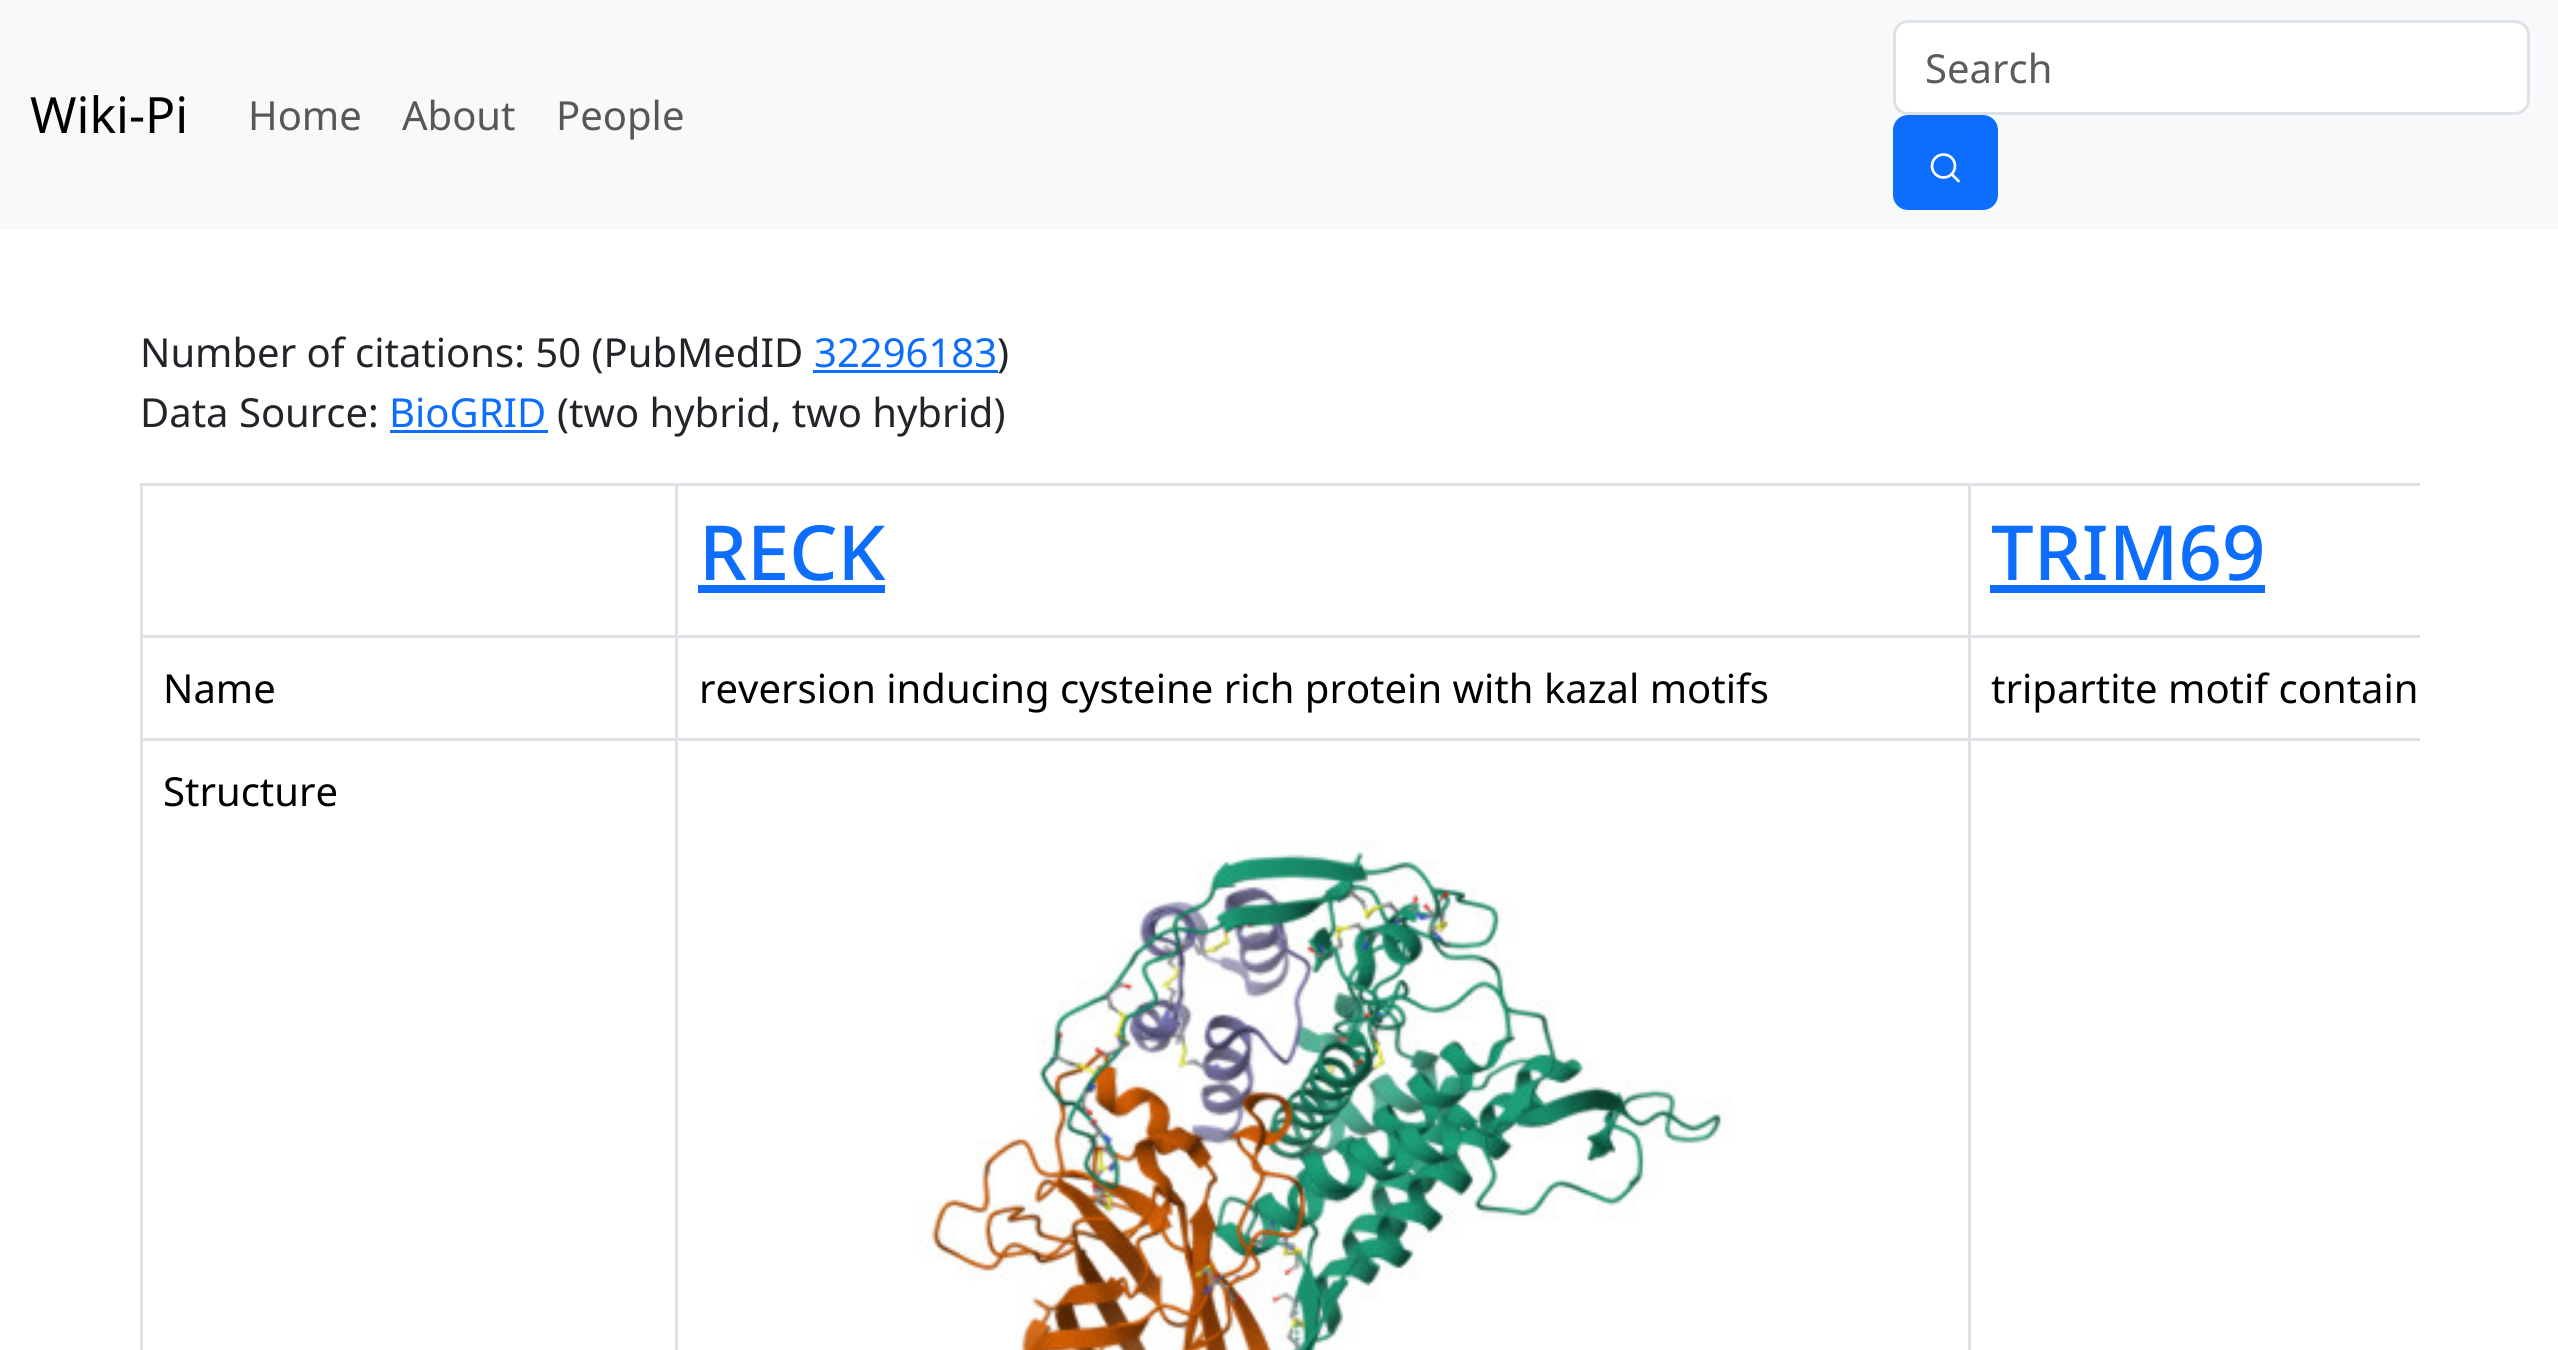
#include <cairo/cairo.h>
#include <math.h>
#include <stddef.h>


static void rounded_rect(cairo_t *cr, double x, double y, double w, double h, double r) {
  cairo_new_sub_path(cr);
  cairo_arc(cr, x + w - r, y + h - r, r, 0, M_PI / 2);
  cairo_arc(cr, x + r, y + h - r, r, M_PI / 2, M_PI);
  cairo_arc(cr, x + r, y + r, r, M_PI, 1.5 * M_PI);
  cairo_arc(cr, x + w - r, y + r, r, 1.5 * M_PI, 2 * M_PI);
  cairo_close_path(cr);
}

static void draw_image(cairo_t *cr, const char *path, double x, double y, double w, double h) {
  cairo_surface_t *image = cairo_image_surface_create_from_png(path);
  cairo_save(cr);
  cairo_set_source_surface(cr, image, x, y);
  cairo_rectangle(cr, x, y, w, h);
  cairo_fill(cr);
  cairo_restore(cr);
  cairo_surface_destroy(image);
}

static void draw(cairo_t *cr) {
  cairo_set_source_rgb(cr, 1, 1, 1);
  cairo_paint(cr);
  cairo_set_source_rgb(cr, 248 / 255.0, 249 / 255.0, 250 / 255.0);
  cairo_rectangle(cr, 0, 0, 2558, 230);
  cairo_fill(cr);
  cairo_set_source_rgb(cr, 1, 1, 1);
  rounded_rect(cr, 1894.5, 21.5, 634, 92, 13.5);
  cairo_fill_preserve(cr);
  cairo_set_source_rgb(cr, 222 / 255.0, 226 / 255.0, 230 / 255.0);
  cairo_set_line_width(cr, 3);
  cairo_stroke(cr);
  cairo_set_source_rgb(cr, 13 / 255.0, 110 / 255.0, 253 / 255.0);
  rounded_rect(cr, 1894.5, 116.5, 102, 92, 13.5);
  cairo_fill_preserve(cr);
  cairo_stroke(cr);
  cairo_arc(cr, 1943.5, 166, 11.5, 0, 2 * M_PI);
  cairo_set_source_rgb(cr, 1, 1, 1);
  cairo_set_line_width(cr, 2.7);
  cairo_stroke(cr);
  cairo_new_path(cr);
  cairo_move_to(cr, 1958.5, 181);
  cairo_line_to(cr, 1952.5, 175);
  cairo_set_line_cap(cr, CAIRO_LINE_CAP_ROUND);
  cairo_stroke(cr);
  cairo_set_source_rgb(cr, 13 / 255.0, 110 / 255.0, 253 / 255.0);
  cairo_rectangle(cr, 813, 370, 185, 3);
  cairo_fill(cr);
  cairo_rectangle(cr, 390, 430, 158, 3);
  cairo_fill(cr);
  cairo_set_source_rgb(cr, 222 / 255.0, 226 / 255.0, 230 / 255.0);
  cairo_rectangle(cr, 140, 483, 2280, 3);
  cairo_fill(cr);
  cairo_set_source_rgb(cr, 13 / 255.0, 110 / 255.0, 253 / 255.0);
  cairo_rectangle(cr, 698, 585, 187, 8);
  cairo_fill(cr);
  cairo_rectangle(cr, 1990, 585, 275, 8);
  cairo_fill(cr);
  cairo_set_source_rgb(cr, 222 / 255.0, 226 / 255.0, 230 / 255.0);
  cairo_rectangle(cr, 140, 635, 2280, 3);
  cairo_fill(cr);
  cairo_rectangle(cr, 140, 738, 2280, 3);
  cairo_fill(cr);
  cairo_rectangle(cr, 140, 483, 3, 867);
  cairo_fill(cr);
  cairo_rectangle(cr, 675, 483, 3, 867);
  cairo_fill(cr);
  draw_image(cr, "images/1.png", 918, 840, 815, 510);
  cairo_rectangle(cr, 1968, 483, 3, 867);
  cairo_fill(cr);
  cairo_select_font_face(cr, "Noto Sans", CAIRO_FONT_SLANT_NORMAL, CAIRO_FONT_WEIGHT_NORMAL);
  cairo_set_font_size(cr, 50);
  cairo_set_source_rgb(cr, 0, 0, 0);
  cairo_move_to(cr, 30, 133);
  cairo_show_text(cr, "Wiki-Pi");
  cairo_set_font_size(cr, 40);
  cairo_set_source_rgb(cr, 89 / 255.0, 92 / 255.0, 95 / 255.0);
  cairo_move_to(cr, 1925, 83);
  cairo_show_text(cr, "Search");
  cairo_set_source_rgb(cr, 87 / 255.0, 87 / 255.0, 88 / 255.0);
  cairo_move_to(cr, 248, 130);
  cairo_show_text(cr, "Home");
  cairo_move_to(cr, 402, 130);
  cairo_show_text(cr, "About");
  cairo_move_to(cr, 556, 130);
  cairo_show_text(cr, "People");
  cairo_set_source_rgb(cr, 33 / 255.0, 37 / 255.0, 41 / 255.0);
  cairo_move_to(cr, 140, 367);
  cairo_show_text(cr, "Number of citations: 50 (PubMedID");
  cairo_set_source_rgb(cr, 13 / 255.0, 110 / 255.0, 253 / 255.0);
  cairo_move_to(cr, 814, 367);
  cairo_show_text(cr, "32296183");
  cairo_set_source_rgb(cr, 33 / 255.0, 37 / 255.0, 41 / 255.0);
  cairo_move_to(cr, 997, 367);
  cairo_show_text(cr, ")");
  cairo_move_to(cr, 140, 427);
  cairo_show_text(cr, "Data Source:");
  cairo_set_source_rgb(cr, 13 / 255.0, 110 / 255.0, 253 / 255.0);
  cairo_move_to(cr, 389, 427);
  cairo_show_text(cr, "BioGRID");
  cairo_set_source_rgb(cr, 33 / 255.0, 37 / 255.0, 41 / 255.0);
  cairo_move_to(cr, 557, 427);
  cairo_show_text(cr, "(two hybrid, two hybrid)");
  cairo_select_font_face(cr, "Noto Sans Medium", CAIRO_FONT_SLANT_NORMAL, CAIRO_FONT_WEIGHT_NORMAL);
  cairo_set_font_size(cr, 76);
  cairo_set_source_rgb(cr, 13 / 255.0, 110 / 255.0, 253 / 255.0);
  cairo_move_to(cr, 699, 580);
  cairo_show_text(cr, "RECK");
  cairo_move_to(cr, 1991, 580);
  cairo_show_text(cr, "TRIM69");
  cairo_select_font_face(cr, "Noto Sans", CAIRO_FONT_SLANT_NORMAL, CAIRO_FONT_WEIGHT_NORMAL);
  cairo_set_font_size(cr, 40);
  cairo_set_source_rgb(cr, 0, 0, 0);
  cairo_move_to(cr, 163, 703);
  cairo_show_text(cr, "Name");
  cairo_move_to(cr, 699, 703);
  cairo_show_text(cr, "reversion inducing cysteine rich protein with kazal motifs");
  cairo_move_to(cr, 1991, 703);
  cairo_show_text(cr, "tripartite motif contain");
  cairo_move_to(cr, 163, 806);
  cairo_show_text(cr, "Structure");
}

int main(void) {
  cairo_surface_t *surface = cairo_image_surface_create(CAIRO_FORMAT_RGB24, 2558, 1350);
  cairo_t *cr = cairo_create(surface);
  cairo_font_options_t *options = cairo_font_options_create();
  cairo_font_options_set_hint_metrics(options, CAIRO_HINT_METRICS_OFF);
  cairo_font_options_set_hint_style(options, CAIRO_HINT_STYLE_NONE);
  cairo_set_font_options(cr, options);
  cairo_set_miter_limit(cr, 4);
  draw(cr);
  cairo_surface_write_to_png(surface, "out.png");
  cairo_font_options_destroy(options);
  cairo_destroy(cr);
  cairo_surface_destroy(surface);
  return 0;
}
